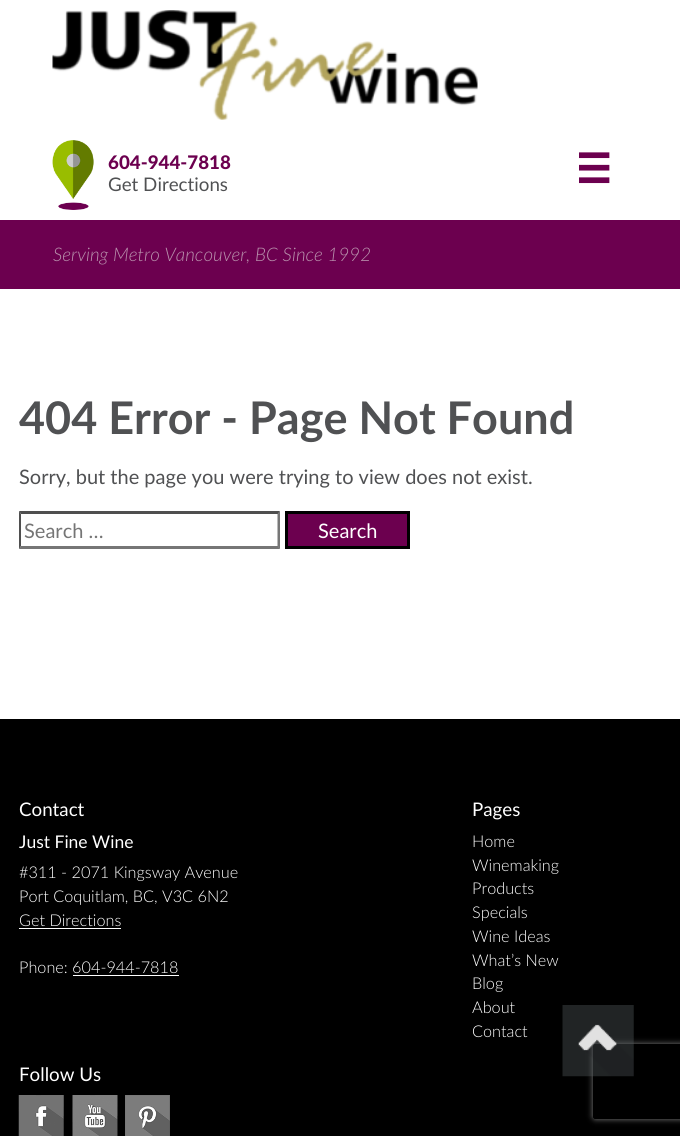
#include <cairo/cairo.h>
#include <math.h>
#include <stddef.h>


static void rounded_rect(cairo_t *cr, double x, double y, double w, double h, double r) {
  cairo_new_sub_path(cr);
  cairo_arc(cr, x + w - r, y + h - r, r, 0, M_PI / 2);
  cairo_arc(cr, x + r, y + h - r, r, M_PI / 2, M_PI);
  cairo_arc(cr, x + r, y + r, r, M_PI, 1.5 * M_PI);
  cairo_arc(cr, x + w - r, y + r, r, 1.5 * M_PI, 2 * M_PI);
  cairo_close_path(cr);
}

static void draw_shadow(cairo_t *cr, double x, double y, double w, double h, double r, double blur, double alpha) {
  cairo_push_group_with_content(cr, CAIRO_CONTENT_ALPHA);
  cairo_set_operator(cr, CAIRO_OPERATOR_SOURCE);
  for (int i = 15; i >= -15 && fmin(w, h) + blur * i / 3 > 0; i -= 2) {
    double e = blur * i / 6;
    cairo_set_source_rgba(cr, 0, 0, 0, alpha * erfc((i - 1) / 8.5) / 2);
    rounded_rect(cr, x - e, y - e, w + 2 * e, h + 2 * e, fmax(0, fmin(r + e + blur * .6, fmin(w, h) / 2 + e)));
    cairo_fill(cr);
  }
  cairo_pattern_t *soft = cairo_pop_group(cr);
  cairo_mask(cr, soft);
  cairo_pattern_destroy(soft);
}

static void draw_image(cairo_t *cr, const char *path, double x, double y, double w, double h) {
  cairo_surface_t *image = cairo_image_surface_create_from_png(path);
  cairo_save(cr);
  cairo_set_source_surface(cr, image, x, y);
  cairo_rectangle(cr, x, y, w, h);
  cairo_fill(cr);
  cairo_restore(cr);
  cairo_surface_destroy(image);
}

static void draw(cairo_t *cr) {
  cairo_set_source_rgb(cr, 1, 1, 1);
  cairo_paint(cr);
  draw_image(cr, "images/1.png", 52, 10, 426, 110);
  draw_image(cr, "images/2.png", 52, 140, 42, 70);
  cairo_set_source_rgb(cr, 108 / 255.0, 0, 79 / 255.0);
  cairo_rectangle(cr, 0, 220, 680, 69);
  cairo_fill(cr);
  cairo_set_source_rgb(cr, 79 / 255.0, 79 / 255.0, 79 / 255.0);
  cairo_new_path(cr);
  cairo_move_to(cr, 19, 511);
  cairo_line_to(cr, 280, 511);
  cairo_line_to(cr, 278, 514);
  cairo_line_to(cr, 21, 514);
  cairo_close_path(cr);
  cairo_fill(cr);
  cairo_set_source_rgb(cr, 118 / 255.0, 118 / 255.0, 118 / 255.0);
  cairo_new_path(cr);
  cairo_move_to(cr, 280, 511);
  cairo_line_to(cr, 280, 549);
  cairo_line_to(cr, 277.5, 546);
  cairo_line_to(cr, 277.5, 514);
  cairo_close_path(cr);
  cairo_fill(cr);
  cairo_new_path(cr);
  cairo_move_to(cr, 280, 549);
  cairo_line_to(cr, 19, 549);
  cairo_line_to(cr, 21, 546);
  cairo_line_to(cr, 278, 546);
  cairo_close_path(cr);
  cairo_fill(cr);
  cairo_set_source_rgb(cr, 79 / 255.0, 79 / 255.0, 79 / 255.0);
  cairo_new_path(cr);
  cairo_move_to(cr, 19, 549);
  cairo_line_to(cr, 19, 511);
  cairo_line_to(cr, 21, 514);
  cairo_line_to(cr, 21, 546);
  cairo_close_path(cr);
  cairo_fill(cr);
  cairo_set_source_rgb(cr, 108 / 255.0, 0, 79 / 255.0);
  cairo_rectangle(cr, 286.5, 512.5, 122, 35);
  cairo_fill_preserve(cr);
  cairo_set_source_rgb(cr, 0, 0, 0);
  cairo_set_line_width(cr, 3);
  cairo_stroke(cr);
  cairo_rectangle(cr, 0, 719, 680, 417);
  cairo_fill(cr);
  cairo_set_source_rgb(cr, 1, 1, 1);
  cairo_rectangle(cr, 19, 928, 102, 1);
  cairo_fill(cr);
  cairo_rectangle(cr, 73, 975, 106, 1);
  cairo_fill(cr);
  draw_image(cr, "images/3.png", 18, 1095, 46, 41);
  draw_image(cr, "images/4.png", 72, 1095, 46, 41);
  draw_image(cr, "images/5.png", 125, 1095, 45, 41);
  cairo_save(cr);
  cairo_set_fill_rule(cr, CAIRO_FILL_RULE_EVEN_ODD);
  cairo_new_path(cr);
  cairo_move_to(cr, 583, 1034);
  cairo_line_to(cr, 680, 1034);
  cairo_line_to(cr, 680, 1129);
  cairo_line_to(cr, 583, 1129);
  cairo_close_path(cr);
  cairo_move_to(cr, 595.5, 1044);
  cairo_line_to(cr, 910.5, 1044);
  cairo_curve_to(cr, 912, 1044, 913, 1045, 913, 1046.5);
  cairo_line_to(cr, 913, 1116.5);
  cairo_curve_to(cr, 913, 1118, 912, 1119, 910.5, 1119);
  cairo_line_to(cr, 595.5, 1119);
  cairo_curve_to(cr, 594, 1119, 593, 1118, 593, 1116.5);
  cairo_line_to(cr, 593, 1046.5);
  cairo_curve_to(cr, 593, 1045, 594, 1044, 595.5, 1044);
  cairo_close_path(cr);
  cairo_clip(cr);
  cairo_set_source_rgb(cr, 128 / 255.0, 128 / 255.0, 128 / 255.0);
  draw_shadow(cr, 593, 1044, 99, 75, 2.5, 3, 1);
  cairo_restore(cr);
  draw_image(cr, "images/6.png", 562, 1005, 72, 72);
  cairo_select_font_face(cr, "Lato Black", CAIRO_FONT_SLANT_NORMAL, CAIRO_FONT_WEIGHT_NORMAL);
  cairo_set_font_size(cr, 18.75);
  cairo_set_source_rgb(cr, 108 / 255.0, 0, 79 / 255.0);
  cairo_move_to(cr, 108, 169);
  cairo_show_text(cr, "604-944-7818");
  cairo_select_font_face(cr, "Lato", CAIRO_FONT_SLANT_NORMAL, CAIRO_FONT_WEIGHT_NORMAL);
  cairo_set_source_rgb(cr, 80 / 255.0, 81 / 255.0, 83 / 255.0);
  cairo_move_to(cr, 108, 191);
  cairo_show_text(cr, "Get Directions");
  cairo_select_font_face(cr, "Lato", CAIRO_FONT_SLANT_NORMAL, CAIRO_FONT_WEIGHT_BOLD);
  cairo_set_font_size(cr, 42);
  cairo_set_source_rgb(cr, 108 / 255.0, 0, 79 / 255.0);
  cairo_save(cr);
  cairo_translate(cr, 579, 149);
  cairo_rotate(cr, 90 * M_PI / 180);
  cairo_move_to(cr, 0, 0);
  cairo_show_text(cr, "III");
  cairo_restore(cr);
  cairo_select_font_face(cr, "Lato Light", CAIRO_FONT_SLANT_ITALIC, CAIRO_FONT_WEIGHT_NORMAL);
  cairo_set_font_size(cr, 18.75);
  cairo_set_source_rgb(cr, 185 / 255.0, 146 / 255.0, 173 / 255.0);
  cairo_move_to(cr, 53, 261);
  cairo_show_text(cr, "Serving Metro Vancouver, BC Since 1992");
  cairo_select_font_face(cr, "Lato", CAIRO_FONT_SLANT_NORMAL, CAIRO_FONT_WEIGHT_BOLD);
  cairo_set_font_size(cr, 45);
  cairo_set_source_rgb(cr, 80 / 255.0, 81 / 255.0, 83 / 255.0);
  cairo_move_to(cr, 19, 434);
  cairo_show_text(cr, "404 Error - Page Not Found");
  cairo_select_font_face(cr, "Lato", CAIRO_FONT_SLANT_NORMAL, CAIRO_FONT_WEIGHT_NORMAL);
  cairo_set_font_size(cr, 20);
  cairo_move_to(cr, 19, 484);
  cairo_show_text(cr, "Sorry, but the page you were trying to view does not exist.");
  cairo_set_source_rgb(cr, 117 / 255.0, 117 / 255.0, 117 / 255.0);
  cairo_move_to(cr, 24, 538);
  cairo_show_text(cr, "Search …");
  cairo_set_source_rgb(cr, 1, 1, 1);
  cairo_move_to(cr, 318, 538);
  cairo_show_text(cr, "Search");
  cairo_set_font_size(cr, 18.75);
  cairo_move_to(cr, 19, 816);
  cairo_show_text(cr, "Contact");
  cairo_set_font_size(cr, 17.5);
  cairo_move_to(cr, 19, 848);
  cairo_show_text(cr, "Just Fine Wine");
  cairo_select_font_face(cr, "Lato Light", CAIRO_FONT_SLANT_NORMAL, CAIRO_FONT_WEIGHT_NORMAL);
  cairo_set_font_size(cr, 16.25);
  cairo_move_to(cr, 19, 878);
  cairo_show_text(cr, "#311 - 2071 Kingsway Avenue");
  cairo_move_to(cr, 19, 902);
  cairo_show_text(cr, "Port Coquitlam, BC, V3C 6N2");
  cairo_move_to(cr, 19, 926);
  cairo_show_text(cr, "Get Directions");
  cairo_move_to(cr, 19, 973);
  cairo_show_text(cr, "Phone: 604-944-7818");
  cairo_select_font_face(cr, "Lato", CAIRO_FONT_SLANT_NORMAL, CAIRO_FONT_WEIGHT_NORMAL);
  cairo_set_font_size(cr, 18.75);
  cairo_move_to(cr, 472, 816);
  cairo_show_text(cr, "Pages");
  cairo_select_font_face(cr, "Lato Light", CAIRO_FONT_SLANT_NORMAL, CAIRO_FONT_WEIGHT_NORMAL);
  cairo_set_font_size(cr, 16.25);
  cairo_move_to(cr, 472, 847);
  cairo_show_text(cr, "Home");
  cairo_move_to(cr, 472, 871);
  cairo_show_text(cr, "Winemaking");
  cairo_move_to(cr, 472, 894);
  cairo_show_text(cr, "Products");
  cairo_move_to(cr, 472, 918);
  cairo_show_text(cr, "Specials");
  cairo_move_to(cr, 472, 942);
  cairo_show_text(cr, "Wine Ideas");
  cairo_move_to(cr, 472, 966);
  cairo_show_text(cr, "What’s New");
  cairo_move_to(cr, 472, 989);
  cairo_show_text(cr, "Blog");
  cairo_move_to(cr, 472, 1013);
  cairo_show_text(cr, "About");
  cairo_move_to(cr, 472, 1037);
  cairo_show_text(cr, "Contact");
  cairo_select_font_face(cr, "Lato", CAIRO_FONT_SLANT_NORMAL, CAIRO_FONT_WEIGHT_NORMAL);
  cairo_set_font_size(cr, 18.75);
  cairo_move_to(cr, 19, 1081);
  cairo_show_text(cr, "Follow Us");
}

int main(void) {
  cairo_surface_t *surface = cairo_image_surface_create(CAIRO_FORMAT_RGB24, 680, 1136);
  cairo_t *cr = cairo_create(surface);
  cairo_font_options_t *options = cairo_font_options_create();
  cairo_font_options_set_hint_metrics(options, CAIRO_HINT_METRICS_OFF);
  cairo_font_options_set_hint_style(options, CAIRO_HINT_STYLE_NONE);
  cairo_set_font_options(cr, options);
  cairo_set_miter_limit(cr, 4);
  draw(cr);
  cairo_surface_write_to_png(surface, "out.png");
  cairo_font_options_destroy(options);
  cairo_destroy(cr);
  cairo_surface_destroy(surface);
  return 0;
}
